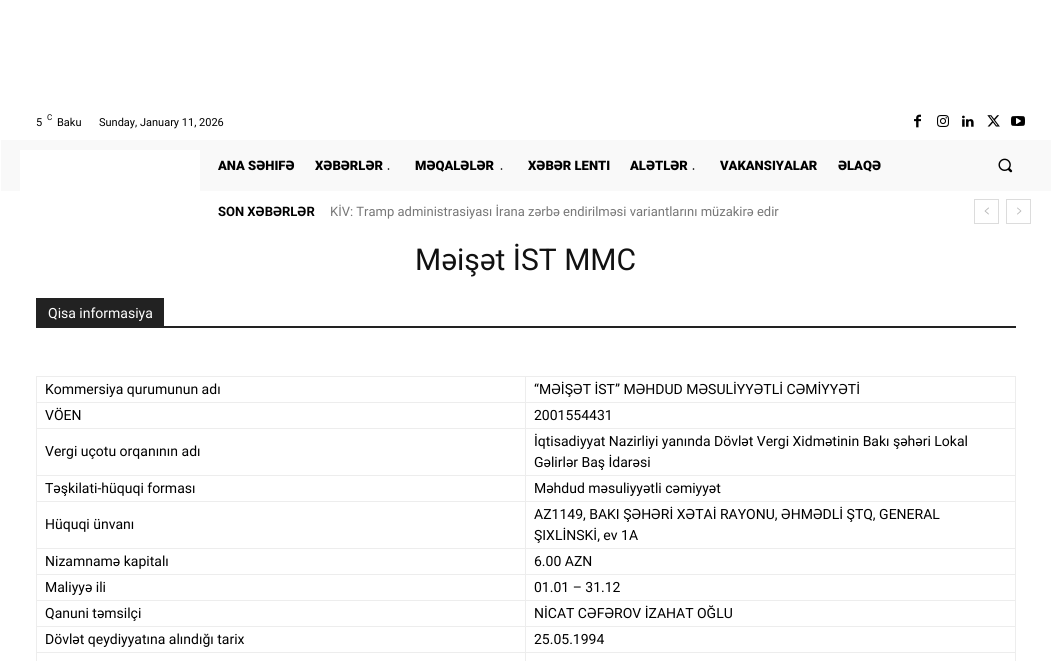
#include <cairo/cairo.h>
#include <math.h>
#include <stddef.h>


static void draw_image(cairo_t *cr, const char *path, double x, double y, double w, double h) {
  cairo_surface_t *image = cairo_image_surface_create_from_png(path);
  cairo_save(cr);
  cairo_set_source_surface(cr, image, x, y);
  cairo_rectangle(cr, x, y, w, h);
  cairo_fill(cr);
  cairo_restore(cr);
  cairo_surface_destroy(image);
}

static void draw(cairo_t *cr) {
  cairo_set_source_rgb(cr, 1, 1, 1);
  cairo_paint(cr);
  draw_image(cr, "images/1.png", 914, 114, 7, 14);
  draw_image(cr, "images/2.png", 937, 115, 12, 12);
  draw_image(cr, "images/3.png", 962, 115, 12, 12);
  draw_image(cr, "images/4.png", 987, 115, 13, 12);
  draw_image(cr, "images/5.png", 1011, 116, 14, 10);
  cairo_set_source_rgb(cr, 249 / 255.0, 249 / 255.0, 249 / 255.0);
  cairo_rectangle(cr, 1, 140, 1050, 51);
  cairo_fill(cr);
  cairo_set_source_rgb(cr, 1, 1, 1);
  cairo_rectangle(cr, 20, 150, 180, 41);
  cairo_fill(cr);
  draw_image(cr, "images/6.png", 387, 168, 3, 2);
  draw_image(cr, "images/6.png", 500, 168, 3, 2);
  draw_image(cr, "images/6.png", 692, 168, 3, 2);
  draw_image(cr, "images/7.png", 998, 158, 15, 15);
  cairo_rectangle(cr, 974.5, 199.5, 24, 24);
  cairo_set_source_rgb(cr, 220 / 255.0, 220 / 255.0, 220 / 255.0);
  cairo_set_line_width(cr, 1);
  cairo_stroke(cr);
  draw_image(cr, "images/8.png", 984, 207, 5, 8);
  cairo_rectangle(cr, 1006.5, 199.5, 24, 24);
  cairo_stroke(cr);
  draw_image(cr, "images/9.png", 1017, 207, 5, 8);
  cairo_set_source_rgb(cr, 34 / 255.0, 34 / 255.0, 34 / 255.0);
  cairo_rectangle(cr, 36, 326, 980, 2);
  cairo_fill(cr);
  cairo_rectangle(cr, 36, 298, 128, 28);
  cairo_fill(cr);
  cairo_set_source_rgb(cr, 237 / 255.0, 237 / 255.0, 237 / 255.0);
  cairo_rectangle(cr, 525, 376, 491, 1);
  cairo_fill(cr);
  cairo_rectangle(cr, 525, 402, 491, 1);
  cairo_fill(cr);
  cairo_rectangle(cr, 525, 428, 491, 1);
  cairo_fill(cr);
  cairo_rectangle(cr, 525, 475, 491, 1);
  cairo_fill(cr);
  cairo_rectangle(cr, 525, 501, 491, 1);
  cairo_fill(cr);
  cairo_rectangle(cr, 525, 548, 491, 1);
  cairo_fill(cr);
  cairo_rectangle(cr, 525, 574, 491, 1);
  cairo_fill(cr);
  cairo_rectangle(cr, 525, 600, 491, 1);
  cairo_fill(cr);
  cairo_rectangle(cr, 525, 626, 491, 1);
  cairo_fill(cr);
  cairo_rectangle(cr, 525, 652, 491, 1);
  cairo_fill(cr);
  cairo_rectangle(cr, 525, 652, 1, 9);
  cairo_fill(cr);
  cairo_rectangle(cr, 36, 652, 490, 1);
  cairo_fill(cr);
  cairo_rectangle(cr, 525, 626, 1, 27);
  cairo_fill(cr);
  cairo_rectangle(cr, 36, 626, 490, 1);
  cairo_fill(cr);
  cairo_rectangle(cr, 525, 600, 1, 27);
  cairo_fill(cr);
  cairo_rectangle(cr, 36, 600, 490, 1);
  cairo_fill(cr);
  cairo_rectangle(cr, 525, 574, 1, 27);
  cairo_fill(cr);
  cairo_rectangle(cr, 36, 574, 490, 1);
  cairo_fill(cr);
  cairo_rectangle(cr, 525, 548, 1, 27);
  cairo_fill(cr);
  cairo_rectangle(cr, 36, 548, 490, 1);
  cairo_fill(cr);
  cairo_rectangle(cr, 525, 501, 1, 48);
  cairo_fill(cr);
  cairo_rectangle(cr, 36, 501, 490, 1);
  cairo_fill(cr);
  cairo_rectangle(cr, 525, 475, 1, 27);
  cairo_fill(cr);
  cairo_rectangle(cr, 36, 475, 490, 1);
  cairo_fill(cr);
  cairo_rectangle(cr, 525, 428, 1, 48);
  cairo_fill(cr);
  cairo_rectangle(cr, 36, 428, 490, 1);
  cairo_fill(cr);
  cairo_rectangle(cr, 525, 402, 1, 27);
  cairo_fill(cr);
  cairo_rectangle(cr, 36, 402, 490, 1);
  cairo_fill(cr);
  cairo_rectangle(cr, 525, 376, 1, 27);
  cairo_fill(cr);
  cairo_rectangle(cr, 36, 376, 490, 1);
  cairo_fill(cr);
  cairo_rectangle(cr, 36, 652, 1, 9);
  cairo_fill(cr);
  cairo_rectangle(cr, 36, 626, 1, 27);
  cairo_fill(cr);
  cairo_rectangle(cr, 36, 600, 1, 27);
  cairo_fill(cr);
  cairo_rectangle(cr, 36, 574, 1, 27);
  cairo_fill(cr);
  cairo_rectangle(cr, 36, 548, 1, 27);
  cairo_fill(cr);
  cairo_rectangle(cr, 36, 501, 1, 48);
  cairo_fill(cr);
  cairo_rectangle(cr, 36, 475, 1, 27);
  cairo_fill(cr);
  cairo_rectangle(cr, 36, 428, 1, 48);
  cairo_fill(cr);
  cairo_rectangle(cr, 36, 402, 1, 27);
  cairo_fill(cr);
  cairo_rectangle(cr, 36, 376, 1, 27);
  cairo_fill(cr);
  cairo_rectangle(cr, 1015, 652, 1, 9);
  cairo_fill(cr);
  cairo_rectangle(cr, 1015, 626, 1, 27);
  cairo_fill(cr);
  cairo_rectangle(cr, 1015, 600, 1, 27);
  cairo_fill(cr);
  cairo_rectangle(cr, 1015, 574, 1, 27);
  cairo_fill(cr);
  cairo_rectangle(cr, 1015, 548, 1, 27);
  cairo_fill(cr);
  cairo_rectangle(cr, 1015, 501, 1, 48);
  cairo_fill(cr);
  cairo_rectangle(cr, 1015, 475, 1, 27);
  cairo_fill(cr);
  cairo_rectangle(cr, 1015, 428, 1, 48);
  cairo_fill(cr);
  cairo_rectangle(cr, 1015, 402, 1, 27);
  cairo_fill(cr);
  cairo_rectangle(cr, 1015, 376, 1, 27);
  cairo_fill(cr);
  cairo_select_font_face(cr, "Roboto", CAIRO_FONT_SLANT_NORMAL, CAIRO_FONT_WEIGHT_NORMAL);
  cairo_set_font_size(cr, 11);
  cairo_set_source_rgb(cr, 0, 0, 0);
  cairo_move_to(cr, 36, 126);
  cairo_show_text(cr, "5");
  cairo_set_font_size(cr, 8);
  cairo_move_to(cr, 47, 120);
  cairo_show_text(cr, "C");
  cairo_set_font_size(cr, 11);
  cairo_move_to(cr, 57, 126);
  cairo_show_text(cr, "Baku");
  cairo_move_to(cr, 99, 126);
  cairo_show_text(cr, "Sunday, January 11, 2026");
  cairo_select_font_face(cr, "Roboto Black", CAIRO_FONT_SLANT_NORMAL, CAIRO_FONT_WEIGHT_NORMAL);
  cairo_set_font_size(cr, 13);
  cairo_move_to(cr, 218, 170);
  cairo_show_text(cr, "ANA SƏHIFƏ");
  cairo_move_to(cr, 315, 170);
  cairo_show_text(cr, "XƏBƏRLƏR");
  cairo_move_to(cr, 415, 170);
  cairo_show_text(cr, "MƏQALƏLƏR");
  cairo_move_to(cr, 528, 170);
  cairo_show_text(cr, "XƏBƏR LENTI");
  cairo_move_to(cr, 630, 170);
  cairo_show_text(cr, "ALƏTLƏR");
  cairo_move_to(cr, 720, 170);
  cairo_show_text(cr, "VAKANSIYALAR");
  cairo_move_to(cr, 838, 170);
  cairo_show_text(cr, "ƏLAQƏ");
  cairo_select_font_face(cr, "Roboto", CAIRO_FONT_SLANT_NORMAL, CAIRO_FONT_WEIGHT_BOLD);
  cairo_move_to(cr, 218, 216);
  cairo_show_text(cr, "SON XƏBƏRLƏR");
  cairo_select_font_face(cr, "Roboto", CAIRO_FONT_SLANT_NORMAL, CAIRO_FONT_WEIGHT_NORMAL);
  cairo_set_source_rgb(cr, 119 / 255.0, 119 / 255.0, 119 / 255.0);
  cairo_move_to(cr, 330, 216);
  cairo_show_text(cr, "KİV: Tramp administrasiyası İrana zərbə endirilməsi variantlarını müzakirə edir");
  cairo_set_font_size(cr, 30);
  cairo_set_source_rgb(cr, 17 / 255.0, 17 / 255.0, 17 / 255.0);
  cairo_move_to(cr, 415, 270);
  cairo_show_text(cr, "Məişət İST MMC");
  cairo_set_font_size(cr, 14);
  cairo_set_source_rgb(cr, 1, 1, 1);
  cairo_move_to(cr, 48, 318);
  cairo_show_text(cr, "Qisa informasiya");
  cairo_set_source_rgb(cr, 0, 0, 0);
  cairo_move_to(cr, 45, 394);
  cairo_show_text(cr, "Kommersiya qurumunun adı");
  cairo_move_to(cr, 534, 394);
  cairo_show_text(cr, "“MƏİŞƏT İST” MƏHDUD MƏSULİYYƏTLİ CƏMİYYƏTİ");
  cairo_move_to(cr, 45, 420);
  cairo_show_text(cr, "VÖEN");
  cairo_move_to(cr, 534, 420);
  cairo_show_text(cr, "2001554431");
  cairo_move_to(cr, 45, 456);
  cairo_show_text(cr, "Vergi uçotu orqanının adı");
  cairo_move_to(cr, 534, 446);
  cairo_show_text(cr, "İqtisadiyyat Nazirliyi yanında Dövlət Vergi Xidmətinin Bakı şəhəri Lokal");
  cairo_move_to(cr, 534, 467);
  cairo_show_text(cr, "Gəlirlər Baş İdarəsi");
  cairo_move_to(cr, 45, 493);
  cairo_show_text(cr, "Təşkilati-hüquqi forması");
  cairo_move_to(cr, 534, 493);
  cairo_show_text(cr, "Məhdud məsuliyyətli cəmiyyət");
  cairo_move_to(cr, 45, 529);
  cairo_show_text(cr, "Hüquqi ünvanı");
  cairo_move_to(cr, 534, 519);
  cairo_show_text(cr, "AZ1149, BAKI ŞƏHƏRİ XƏTAİ RAYONU, ƏHMƏDLİ ŞTQ, GENERAL");
  cairo_move_to(cr, 534, 540);
  cairo_show_text(cr, "ŞIXLİNSKİ, ev 1A");
  cairo_move_to(cr, 45, 566);
  cairo_show_text(cr, "Nizamnamə kapitalı");
  cairo_move_to(cr, 534, 566);
  cairo_show_text(cr, "6.00 AZN");
  cairo_move_to(cr, 45, 592);
  cairo_show_text(cr, "Maliyyə ili");
  cairo_move_to(cr, 534, 592);
  cairo_show_text(cr, "01.01 – 31.12");
  cairo_move_to(cr, 45, 618);
  cairo_show_text(cr, "Qanuni təmsilçi");
  cairo_move_to(cr, 534, 618);
  cairo_show_text(cr, "NİCAT CƏFƏROV İZAHAT OĞLU");
  cairo_move_to(cr, 45, 644);
  cairo_show_text(cr, "Dövlət qeydiyyatına alındığı tarix");
  cairo_move_to(cr, 534, 644);
  cairo_show_text(cr, "25.05.1994");
}

int main(void) {
  cairo_surface_t *surface = cairo_image_surface_create(CAIRO_FORMAT_RGB24, 1051, 661);
  cairo_t *cr = cairo_create(surface);
  cairo_font_options_t *options = cairo_font_options_create();
  cairo_font_options_set_hint_metrics(options, CAIRO_HINT_METRICS_OFF);
  cairo_font_options_set_hint_style(options, CAIRO_HINT_STYLE_NONE);
  cairo_set_font_options(cr, options);
  cairo_set_miter_limit(cr, 4);
  draw(cr);
  cairo_surface_write_to_png(surface, "out.png");
  cairo_font_options_destroy(options);
  cairo_destroy(cr);
  cairo_surface_destroy(surface);
  return 0;
}
